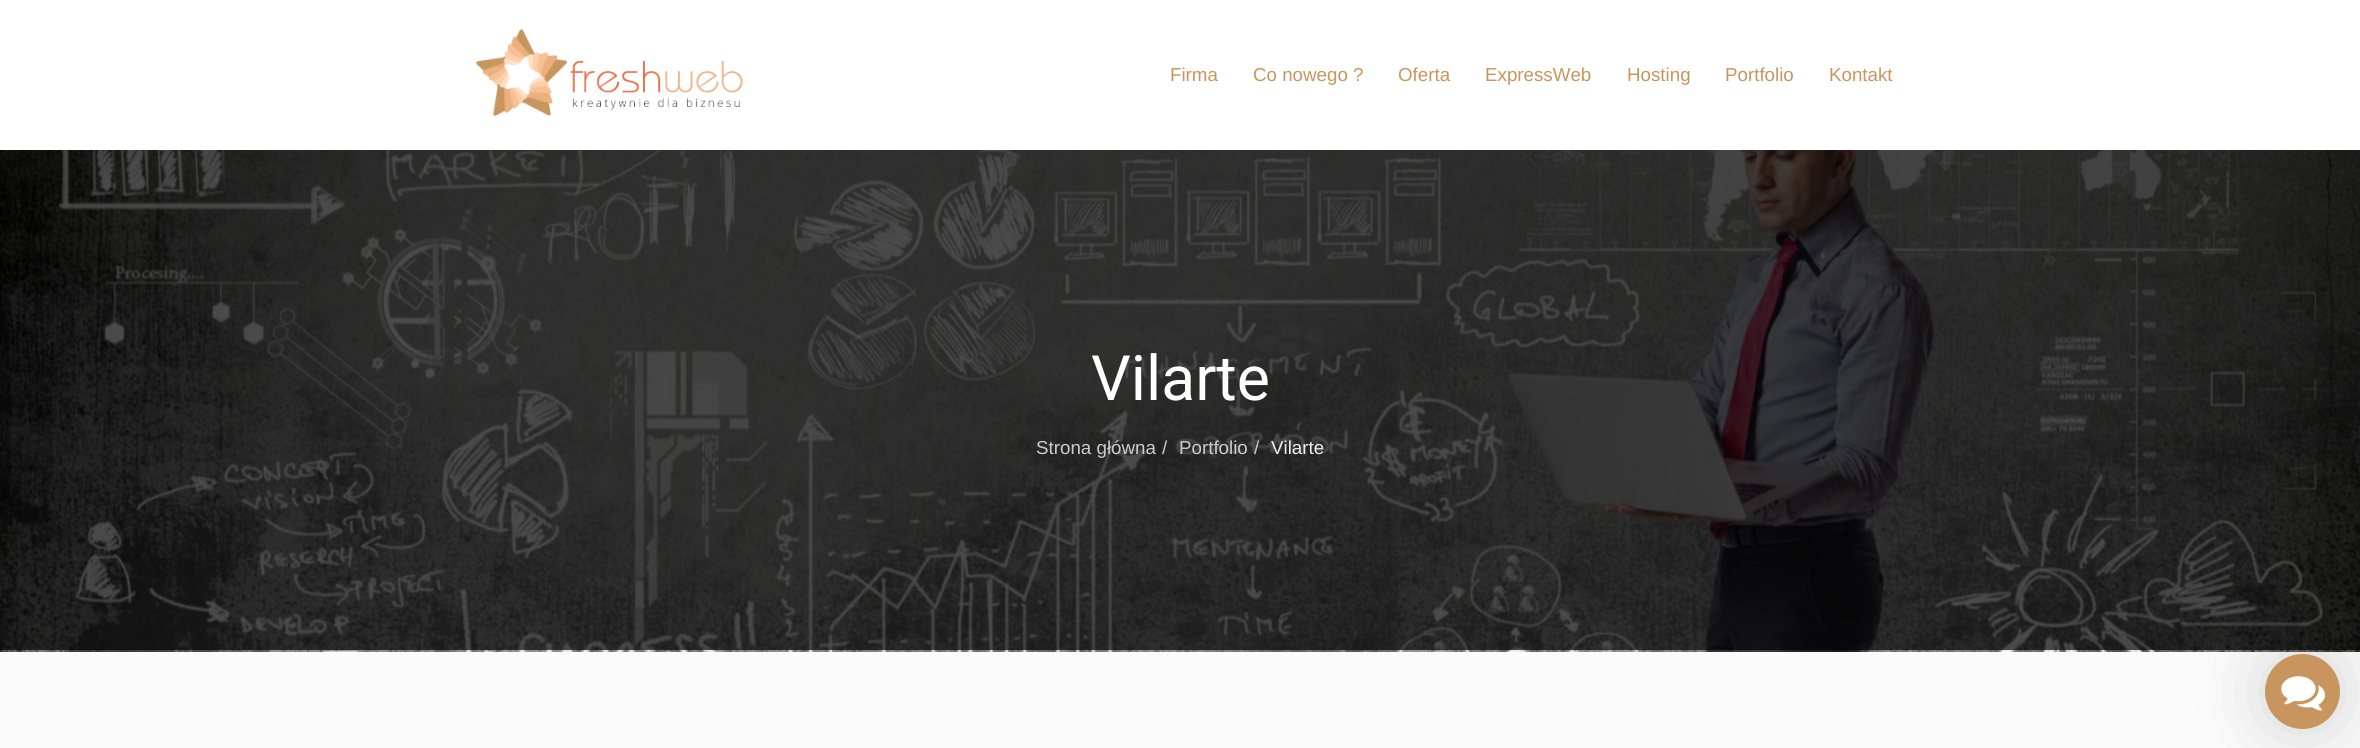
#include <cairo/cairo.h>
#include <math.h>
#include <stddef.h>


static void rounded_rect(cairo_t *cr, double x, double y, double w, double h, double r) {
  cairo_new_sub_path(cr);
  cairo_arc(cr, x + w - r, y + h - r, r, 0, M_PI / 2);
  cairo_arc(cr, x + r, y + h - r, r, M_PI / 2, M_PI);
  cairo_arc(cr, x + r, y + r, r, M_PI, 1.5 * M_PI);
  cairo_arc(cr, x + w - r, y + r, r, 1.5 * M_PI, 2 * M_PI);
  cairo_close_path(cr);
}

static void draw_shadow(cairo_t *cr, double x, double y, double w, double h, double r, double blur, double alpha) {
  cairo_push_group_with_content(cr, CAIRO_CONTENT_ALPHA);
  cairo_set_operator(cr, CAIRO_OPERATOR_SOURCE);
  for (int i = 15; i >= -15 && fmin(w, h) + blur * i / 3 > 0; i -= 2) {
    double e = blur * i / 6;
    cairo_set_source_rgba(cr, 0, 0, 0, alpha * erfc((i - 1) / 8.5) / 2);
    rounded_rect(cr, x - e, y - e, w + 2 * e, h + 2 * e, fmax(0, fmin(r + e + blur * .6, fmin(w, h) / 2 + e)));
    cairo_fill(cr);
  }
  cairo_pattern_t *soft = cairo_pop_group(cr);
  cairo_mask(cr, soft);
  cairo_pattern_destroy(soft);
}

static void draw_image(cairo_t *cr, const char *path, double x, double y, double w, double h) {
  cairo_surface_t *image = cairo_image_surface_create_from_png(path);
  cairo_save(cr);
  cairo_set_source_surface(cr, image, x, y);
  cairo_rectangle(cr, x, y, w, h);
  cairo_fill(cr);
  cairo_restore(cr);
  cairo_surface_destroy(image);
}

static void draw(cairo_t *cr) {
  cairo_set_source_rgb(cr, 1, 1, 1);
  cairo_paint(cr);
  draw_image(cr, "images/1.png", 475, 28, 268, 88);
  cairo_set_source_rgb(cr, 251 / 255.0, 251 / 255.0, 251 / 255.0);
  cairo_rectangle(cr, 0, 652, 2360, 96);
  cairo_fill(cr);
  draw_image(cr, "images/2.png", 0, 150, 2360, 502);
  cairo_set_source_rgba(cr, 0, 0, 0, 0.03);
  cairo_rectangle(cr, 0, 650, 2360, 1);
  cairo_fill(cr);
  cairo_set_source_rgb(cr, 0, 0, 0);
  draw_shadow(cr, 2265, 654, 75, 75, 37.5, 37.5, 0.15);
  cairo_set_source_rgb(cr, 200 / 255.0, 149 / 255.0, 94 / 255.0);
  cairo_arc(cr, 2302.5, 691.5, 37.5, 0, 2 * M_PI);
  cairo_fill(cr);
  draw_image(cr, "images/3.png", 2281, 676, 44, 35);
  cairo_select_font_face(cr, "Liberation Sans", CAIRO_FONT_SLANT_NORMAL, CAIRO_FONT_WEIGHT_NORMAL);
  cairo_set_font_size(cr, 18.75);
  cairo_move_to(cr, 1170, 81);
  cairo_show_text(cr, "Firma");
  cairo_move_to(cr, 1253, 81);
  cairo_show_text(cr, "Co nowego ?");
  cairo_move_to(cr, 1398, 81);
  cairo_show_text(cr, "Oferta");
  cairo_move_to(cr, 1485, 81);
  cairo_show_text(cr, "ExpressWeb");
  cairo_move_to(cr, 1627, 81);
  cairo_show_text(cr, "Hosting");
  cairo_move_to(cr, 1725, 81);
  cairo_show_text(cr, "Portfolio");
  cairo_move_to(cr, 1829, 81);
  cairo_show_text(cr, "Kontakt");
  cairo_select_font_face(cr, "Roboto", CAIRO_FONT_SLANT_NORMAL, CAIRO_FONT_WEIGHT_NORMAL);
  cairo_set_font_size(cr, 62.5);
  cairo_set_source_rgb(cr, 1, 1, 1);
  cairo_move_to(cr, 1091, 400);
  cairo_show_text(cr, "Vilarte");
  cairo_select_font_face(cr, "Liberation Sans", CAIRO_FONT_SLANT_NORMAL, CAIRO_FONT_WEIGHT_NORMAL);
  cairo_set_font_size(cr, 18.75);
  cairo_set_source_rgb(cr, 204 / 255.0, 204 / 255.0, 204 / 255.0);
  cairo_move_to(cr, 1036, 454);
  cairo_show_text(cr, "Strona główna");
  cairo_move_to(cr, 1162, 454);
  cairo_show_text(cr, "/");
  cairo_move_to(cr, 1179, 454);
  cairo_show_text(cr, "Portfolio");
  cairo_move_to(cr, 1254, 454);
  cairo_show_text(cr, "/");
  cairo_set_source_rgb(cr, 238 / 255.0, 238 / 255.0, 238 / 255.0);
  cairo_move_to(cr, 1271, 454);
  cairo_show_text(cr, "Vilarte");
}

int main(void) {
  cairo_surface_t *surface = cairo_image_surface_create(CAIRO_FORMAT_RGB24, 2360, 748);
  cairo_t *cr = cairo_create(surface);
  cairo_font_options_t *options = cairo_font_options_create();
  cairo_font_options_set_hint_metrics(options, CAIRO_HINT_METRICS_OFF);
  cairo_font_options_set_hint_style(options, CAIRO_HINT_STYLE_NONE);
  cairo_set_font_options(cr, options);
  cairo_set_miter_limit(cr, 4);
  draw(cr);
  cairo_surface_write_to_png(surface, "out.png");
  cairo_font_options_destroy(options);
  cairo_destroy(cr);
  cairo_surface_destroy(surface);
  return 0;
}
